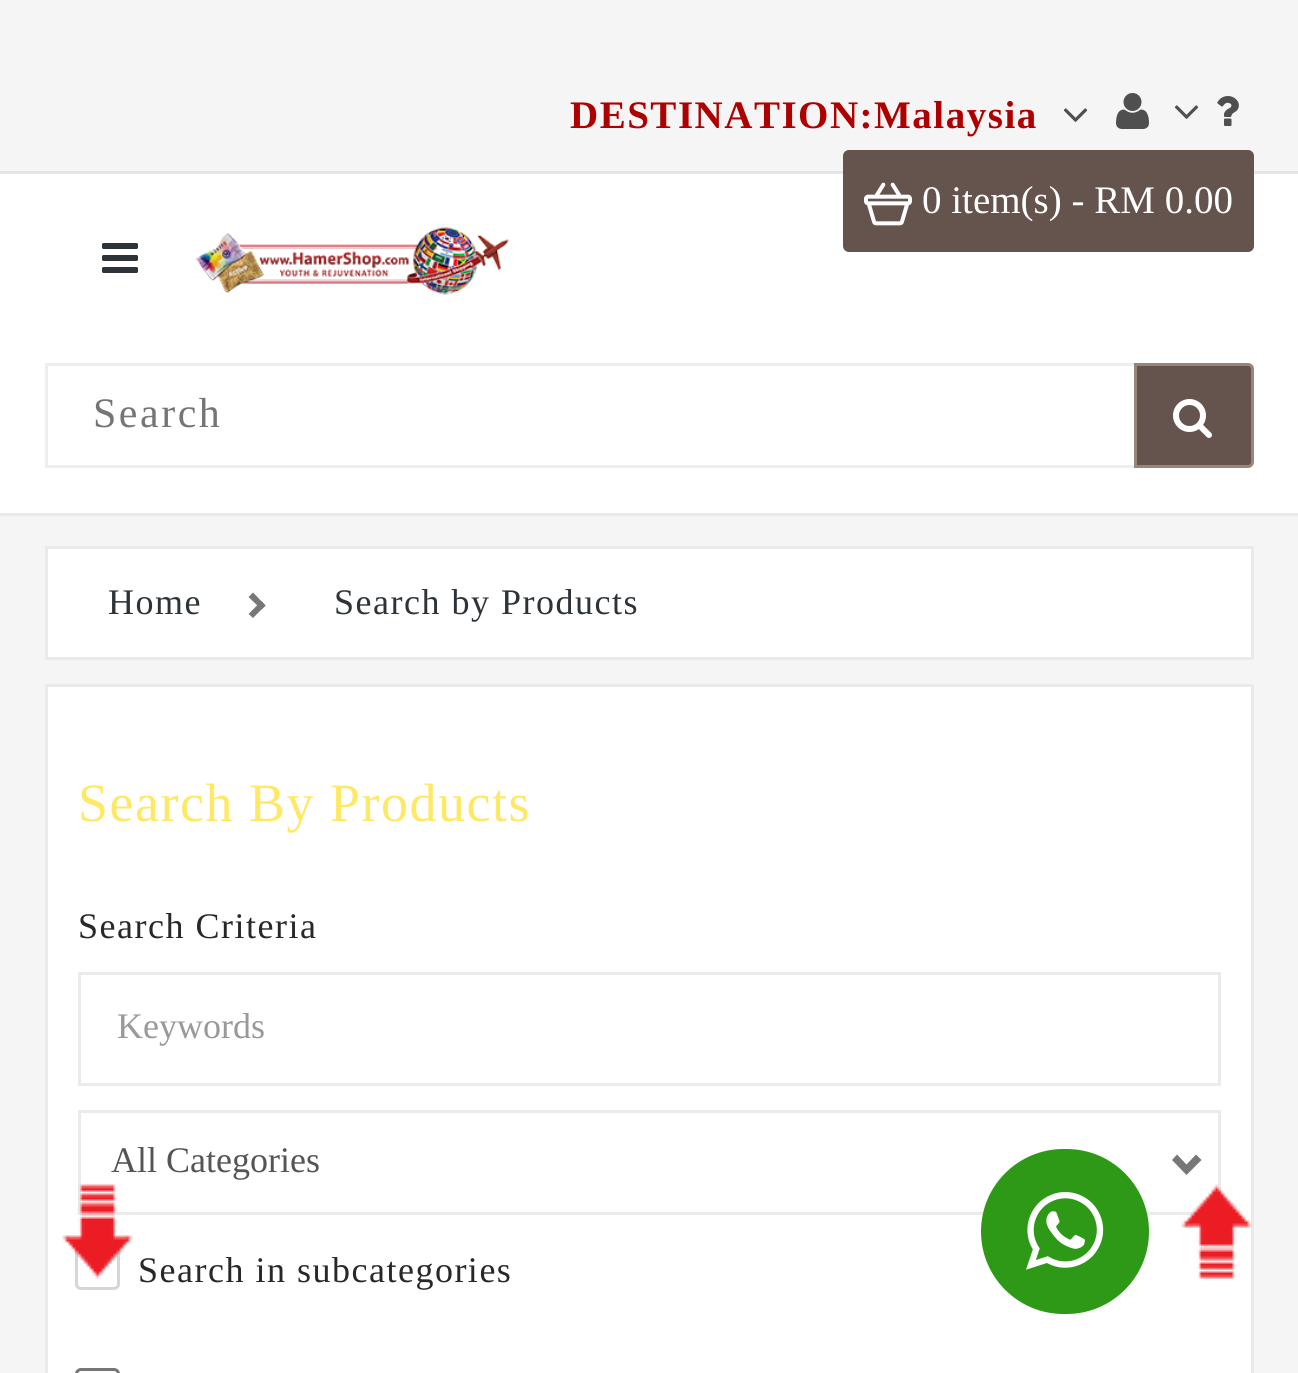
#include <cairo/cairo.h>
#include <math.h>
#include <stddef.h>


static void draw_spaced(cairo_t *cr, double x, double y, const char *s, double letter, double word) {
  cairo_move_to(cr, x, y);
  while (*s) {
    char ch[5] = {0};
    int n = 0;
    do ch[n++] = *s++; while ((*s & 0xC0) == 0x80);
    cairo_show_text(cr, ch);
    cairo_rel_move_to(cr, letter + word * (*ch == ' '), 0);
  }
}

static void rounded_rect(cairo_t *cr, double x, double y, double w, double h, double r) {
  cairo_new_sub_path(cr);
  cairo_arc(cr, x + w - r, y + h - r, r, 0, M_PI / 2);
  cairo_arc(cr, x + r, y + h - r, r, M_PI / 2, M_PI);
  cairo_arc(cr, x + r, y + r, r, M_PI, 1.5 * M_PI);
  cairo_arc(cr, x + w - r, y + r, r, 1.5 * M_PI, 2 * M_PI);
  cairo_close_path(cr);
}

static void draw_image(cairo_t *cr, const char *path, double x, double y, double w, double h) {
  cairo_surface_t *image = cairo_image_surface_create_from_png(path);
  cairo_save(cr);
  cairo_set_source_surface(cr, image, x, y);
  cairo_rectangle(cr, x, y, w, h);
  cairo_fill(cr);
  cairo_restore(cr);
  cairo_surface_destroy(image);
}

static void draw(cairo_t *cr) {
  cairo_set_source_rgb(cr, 245 / 255.0, 245 / 255.0, 245 / 255.0);
  cairo_paint(cr);
  cairo_set_source_rgb(cr, 229 / 255.0, 229 / 255.0, 229 / 255.0);
  cairo_rectangle(cr, 0, 171, 1298, 3);
  cairo_fill(cr);
  draw_image(cr, "images/1.png", 1063, 108, 25, 14);
  draw_image(cr, "images/2.png", 1116, 93, 33, 36);
  draw_image(cr, "images/1.png", 1174, 105, 25, 14);
  draw_image(cr, "images/3.png", 1217, 96, 22, 30);
  cairo_set_source_rgb(cr, 1, 1, 1);
  cairo_rectangle(cr, 0, 174, 1298, 339);
  cairo_fill(cr);
  cairo_set_source_rgb(cr, 234 / 255.0, 234 / 255.0, 234 / 255.0);
  cairo_rectangle(cr, 0, 513, 1298, 3);
  cairo_fill(cr);
  cairo_set_source_rgb(cr, 101 / 255.0, 83 / 255.0, 78 / 255.0);
  rounded_rect(cr, 843, 150, 411, 102, 6);
  cairo_fill(cr);
  draw_image(cr, "images/4.png", 864, 182, 48, 44);
  draw_image(cr, "images/5.png", 195, 227, 314, 68);
  cairo_rectangle(cr, 46.5, 364.5, 1089, 102);
  cairo_set_source_rgb(cr, 238 / 255.0, 238 / 255.0, 238 / 255.0);
  cairo_set_line_width(cr, 3);
  cairo_stroke(cr);
  cairo_set_source_rgb(cr, 101 / 255.0, 83 / 255.0, 78 / 255.0);
  cairo_new_path(cr);
  cairo_move_to(cr, 1135.5, 364.5);
  cairo_line_to(cr, 1248, 364.5);
  cairo_curve_to(cr, 1250.5, 364.5, 1252.5, 366.5, 1252.5, 369);
  cairo_line_to(cr, 1252.5, 462);
  cairo_curve_to(cr, 1252.5, 464.5, 1250.5, 466.5, 1248, 466.5);
  cairo_line_to(cr, 1135.5, 466.5);
  cairo_close_path(cr);
  cairo_fill_preserve(cr);
  cairo_set_source_rgb(cr, 155 / 255.0, 133 / 255.0, 121 / 255.0);
  cairo_stroke(cr);
  draw_image(cr, "images/6.png", 1173, 399, 39, 39);
  draw_image(cr, "images/7.png", 102, 243, 36, 30);
  cairo_set_source_rgb(cr, 1, 1, 1);
  cairo_rectangle(cr, 46.5, 547.5, 1206, 111);
  cairo_fill_preserve(cr);
  cairo_set_source_rgb(cr, 234 / 255.0, 234 / 255.0, 234 / 255.0);
  cairo_stroke(cr);
  cairo_set_source_rgb(cr, 119 / 255.0, 119 / 255.0, 119 / 255.0);
  cairo_new_path(cr);
  cairo_move_to(cr, 248.5, 597);
  cairo_line_to(cr, 253, 592.5);
  cairo_line_to(cr, 265.5, 605.5);
  cairo_line_to(cr, 261.5, 609.5);
  cairo_close_path(cr);
  cairo_fill(cr);
  cairo_new_path(cr);
  cairo_move_to(cr, 248.5, 614);
  cairo_line_to(cr, 261.5, 601);
  cairo_line_to(cr, 265.5, 605.5);
  cairo_line_to(cr, 253, 618);
  cairo_close_path(cr);
  cairo_fill(cr);
  cairo_set_source_rgb(cr, 1, 1, 1);
  cairo_rectangle(cr, 46.5, 685.5, 1206, 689);
  cairo_fill_preserve(cr);
  cairo_set_source_rgb(cr, 234 / 255.0, 234 / 255.0, 234 / 255.0);
  cairo_stroke(cr);
  cairo_rectangle(cr, 79.5, 973.5, 1140, 111);
  cairo_set_source_rgb(cr, 235 / 255.0, 235 / 255.0, 235 / 255.0);
  cairo_stroke(cr);
  cairo_set_source_rgb(cr, 119 / 255.0, 119 / 255.0, 119 / 255.0);
  cairo_new_path(cr);
  cairo_move_to(cr, 1201.5, 1160);
  cairo_line_to(cr, 1196, 1154.5);
  cairo_line_to(cr, 1186.5, 1164.5);
  cairo_line_to(cr, 1177, 1154.5);
  cairo_line_to(cr, 1172, 1160);
  cairo_line_to(cr, 1186.5, 1175);
  cairo_close_path(cr);
  cairo_fill(cr);
  cairo_rectangle(cr, 79.5, 1111.5, 1140, 102);
  cairo_set_source_rgb(cr, 235 / 255.0, 235 / 255.0, 235 / 255.0);
  cairo_stroke(cr);
  rounded_rect(cr, 76.5, 1246.5, 42, 42, 4.5);
  cairo_set_source_rgb(cr, 214 / 255.0, 214 / 255.0, 214 / 255.0);
  cairo_stroke(cr);
  rounded_rect(cr, 76.5, 1369.5, 42, 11, 4.5);
  cairo_set_source_rgb(cr, 118 / 255.0, 118 / 255.0, 118 / 255.0);
  cairo_stroke(cr);
  draw_image(cr, "images/8.png", 62, 1184, 71, 95);
  cairo_set_source_rgb(cr, 46 / 255.0, 153 / 255.0, 22 / 255.0);
  rounded_rect(cr, 981, 1149, 168, 165, 82.5);
  cairo_fill(cr);
  draw_image(cr, "images/9.png", 1026, 1192, 78, 78);
  draw_image(cr, "images/10.png", 1181, 1184, 71, 95);
  cairo_select_font_face(cr, "Liberation Serif", CAIRO_FONT_SLANT_NORMAL, CAIRO_FONT_WEIGHT_BOLD);
  cairo_set_font_size(cr, 39);
  cairo_set_source_rgb(cr, 173 / 255.0, 0, 0);
  draw_spaced(cr, 570, 128, "DESTINATION:Malaysia", 1.5, 0);
  cairo_select_font_face(cr, "Liberation Serif", CAIRO_FONT_SLANT_NORMAL, CAIRO_FONT_WEIGHT_NORMAL);
  cairo_set_source_rgb(cr, 1, 1, 1);
  cairo_move_to(cr, 922, 213);
  cairo_show_text(cr, "0 item(s) - RM 0.00");
  cairo_set_font_size(cr, 42);
  cairo_set_source_rgb(cr, 117 / 255.0, 117 / 255.0, 117 / 255.0);
  draw_spaced(cr, 93, 427, "Search", 2.5, 0);
  cairo_set_font_size(cr, 36);
  cairo_set_source_rgb(cr, 45 / 255.0, 52 / 255.0, 57 / 255.0);
  draw_spaced(cr, 108, 614, "Home", 1.5, 0);
  draw_spaced(cr, 334, 614, "Search by Products", 1.5, 0);
  cairo_set_font_size(cr, 54);
  cairo_set_source_rgb(cr, 1, 232 / 255.0, 100 / 255.0);
  draw_spaced(cr, 78, 821, "Search By Products", 1.5, 0);
  cairo_set_font_size(cr, 36);
  cairo_set_source_rgb(cr, 40 / 255.0, 40 / 255.0, 40 / 255.0);
  draw_spaced(cr, 78, 938, "Search Criteria", 1.5, 0);
  cairo_set_source_rgb(cr, 153 / 255.0, 153 / 255.0, 153 / 255.0);
  cairo_move_to(cr, 117, 1038);
  cairo_show_text(cr, "Keywords");
  cairo_set_source_rgb(cr, 85 / 255.0, 85 / 255.0, 85 / 255.0);
  cairo_move_to(cr, 111, 1172);
  cairo_show_text(cr, "All Categories");
  cairo_set_source_rgb(cr, 40 / 255.0, 40 / 255.0, 40 / 255.0);
  draw_spaced(cr, 138, 1282, "Search in subcategories", 1.5, 0);
}

int main(void) {
  cairo_surface_t *surface = cairo_image_surface_create(CAIRO_FORMAT_RGB24, 1298, 1373);
  cairo_t *cr = cairo_create(surface);
  cairo_font_options_t *options = cairo_font_options_create();
  cairo_font_options_set_hint_metrics(options, CAIRO_HINT_METRICS_OFF);
  cairo_font_options_set_hint_style(options, CAIRO_HINT_STYLE_NONE);
  cairo_set_font_options(cr, options);
  cairo_set_miter_limit(cr, 4);
  draw(cr);
  cairo_surface_write_to_png(surface, "out.png");
  cairo_font_options_destroy(options);
  cairo_destroy(cr);
  cairo_surface_destroy(surface);
  return 0;
}
